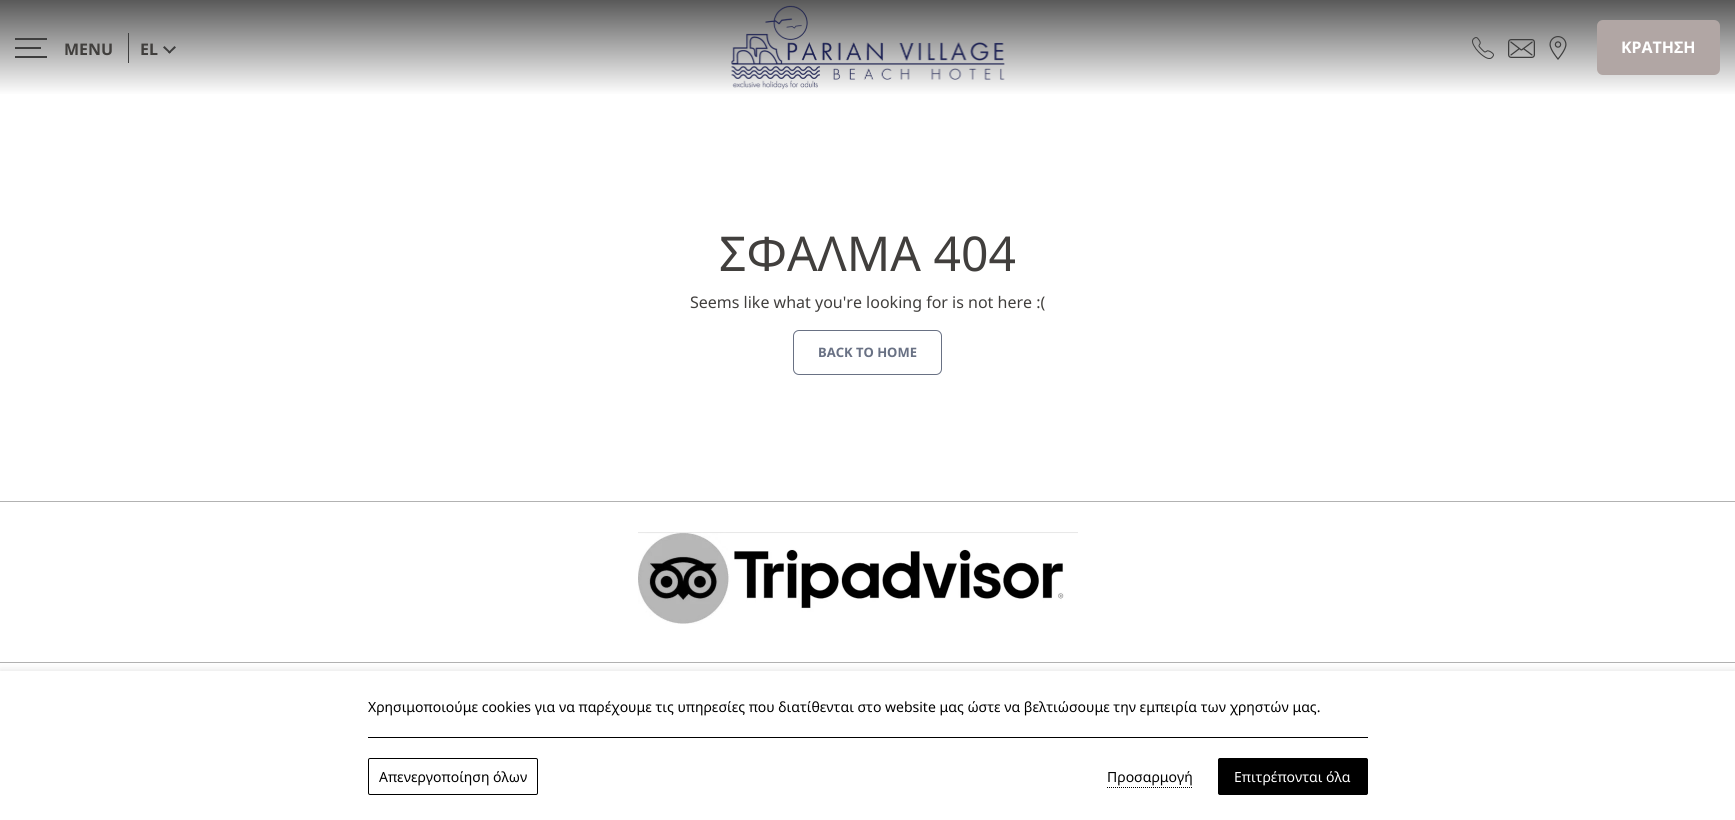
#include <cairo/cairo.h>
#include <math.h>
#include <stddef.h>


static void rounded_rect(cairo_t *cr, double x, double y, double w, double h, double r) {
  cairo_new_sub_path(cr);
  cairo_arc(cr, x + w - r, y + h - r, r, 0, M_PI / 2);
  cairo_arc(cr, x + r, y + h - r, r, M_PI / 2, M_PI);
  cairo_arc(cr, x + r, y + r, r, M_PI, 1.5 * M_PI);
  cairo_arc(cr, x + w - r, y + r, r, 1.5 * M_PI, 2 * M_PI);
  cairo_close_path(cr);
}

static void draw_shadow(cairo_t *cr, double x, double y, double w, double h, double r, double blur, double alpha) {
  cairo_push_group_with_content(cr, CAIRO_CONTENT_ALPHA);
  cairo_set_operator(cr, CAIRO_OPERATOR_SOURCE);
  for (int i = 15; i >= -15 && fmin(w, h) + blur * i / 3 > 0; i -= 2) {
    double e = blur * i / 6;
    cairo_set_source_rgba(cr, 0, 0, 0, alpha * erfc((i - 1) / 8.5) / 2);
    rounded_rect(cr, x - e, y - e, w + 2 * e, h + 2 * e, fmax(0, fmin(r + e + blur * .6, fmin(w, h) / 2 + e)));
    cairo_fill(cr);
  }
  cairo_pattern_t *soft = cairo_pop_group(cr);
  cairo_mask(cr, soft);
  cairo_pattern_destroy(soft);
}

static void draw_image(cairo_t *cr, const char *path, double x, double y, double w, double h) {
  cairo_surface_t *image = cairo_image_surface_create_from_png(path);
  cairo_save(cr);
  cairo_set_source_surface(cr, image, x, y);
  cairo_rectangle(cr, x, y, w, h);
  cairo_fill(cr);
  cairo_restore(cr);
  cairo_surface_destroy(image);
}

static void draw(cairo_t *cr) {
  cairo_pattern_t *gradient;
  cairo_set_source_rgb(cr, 1, 1, 1);
  cairo_paint(cr);
  gradient = cairo_pattern_create_linear(868, 0, 868, 95);
  cairo_pattern_add_color_stop_rgba(gradient, 0, 89 / 255.0, 89 / 255.0, 89 / 255.0, 1);
  cairo_pattern_add_color_stop_rgba(gradient, 1, 1, 1, 1, 1);
  cairo_set_source(cr, gradient);
  cairo_pattern_destroy(gradient);
  cairo_rectangle(cr, 0, 0, 1735, 94);
  cairo_fill(cr);
  cairo_set_source_rgb(cr, 62 / 255.0, 62 / 255.0, 62 / 255.0);
  cairo_rectangle(cr, 15, 47, 26, 2);
  cairo_fill(cr);
  cairo_rectangle(cr, 15, 38, 32, 2);
  cairo_fill(cr);
  cairo_rectangle(cr, 15, 56, 32, 2);
  cairo_fill(cr);
  cairo_rectangle(cr, 128, 33, 1, 30);
  cairo_fill(cr);
  cairo_new_path(cr);
  cairo_move_to(cr, 174.5, 46);
  cairo_line_to(cr, 176, 47.5);
  cairo_line_to(cr, 169.5, 53.5);
  cairo_line_to(cr, 168, 52.5);
  cairo_close_path(cr);
  cairo_fill(cr);
  cairo_new_path(cr);
  cairo_move_to(cr, 164.5, 46);
  cairo_line_to(cr, 171, 52.5);
  cairo_line_to(cr, 169.5, 53.5);
  cairo_line_to(cr, 163, 47.5);
  cairo_close_path(cr);
  cairo_fill(cr);
  draw_image(cr, "images/1.png", 731, 5, 274, 85);
  draw_image(cr, "images/2.png", 1472, 37, 22, 22);
  draw_image(cr, "images/3.png", 1508, 39, 27, 19);
  draw_image(cr, "images/4.png", 1549, 36, 18, 24);
  cairo_set_source_rgb(cr, 177 / 255.0, 166 / 255.0, 164 / 255.0);
  rounded_rect(cr, 1597, 20, 123, 55, 6);
  cairo_fill(cr);
  rounded_rect(cr, 793.5, 330.5, 148, 44, 5.5);
  cairo_set_source_rgb(cr, 105 / 255.0, 113 / 255.0, 132 / 255.0);
  cairo_set_line_width(cr, 1);
  cairo_stroke(cr);
  cairo_set_source_rgb(cr, 178 / 255.0, 178 / 255.0, 178 / 255.0);
  cairo_rectangle(cr, 0, 501, 1735, 1);
  cairo_fill(cr);
  cairo_rectangle(cr, 0, 662, 1735, 1);
  cairo_fill(cr);
  draw_image(cr, "images/5.png", 638, 532, 440, 92);
  cairo_set_source_rgb(cr, 0, 0, 0);
  draw_shadow(cr, 0, 673, 1735, 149, 0, 5, 0.2);
  cairo_set_source_rgb(cr, 1, 1, 1);
  cairo_rectangle(cr, 0, 671, 1735, 149);
  cairo_fill(cr);
  cairo_set_source_rgb(cr, 0, 0, 0);
  cairo_rectangle(cr, 368, 737, 1000, 1);
  cairo_fill(cr);
  rounded_rect(cr, 368.5, 758.5, 169, 36, 1.5);
  cairo_stroke(cr);
  cairo_new_path(cr);
  cairo_move_to(cr, 1107, 787.5);
  cairo_line_to(cr, 1193, 787.5);
  cairo_set_dash(cr, (double[]){1, 1}, 2, 0);
  cairo_stroke(cr);
  rounded_rect(cr, 1218.5, 758.5, 149, 36, 1.5);
  cairo_fill_preserve(cr);
  cairo_set_dash(cr, NULL, 0, 0);
  cairo_stroke(cr);
  cairo_select_font_face(cr, "Noto Sans", CAIRO_FONT_SLANT_NORMAL, CAIRO_FONT_WEIGHT_BOLD);
  cairo_set_font_size(cr, 16);
  cairo_set_source_rgb(cr, 65 / 255.0, 63 / 255.0, 61 / 255.0);
  cairo_move_to(cr, 64, 55);
  cairo_show_text(cr, "MENU");
  cairo_move_to(cr, 140, 55);
  cairo_show_text(cr, "EL");
  cairo_set_source_rgb(cr, 1, 1, 1);
  cairo_move_to(cr, 1621, 53);
  cairo_show_text(cr, "ΚΡΑΤΗΣΗ");
  cairo_select_font_face(cr, "Noto Sans", CAIRO_FONT_SLANT_NORMAL, CAIRO_FONT_WEIGHT_NORMAL);
  cairo_set_font_size(cr, 48);
  cairo_set_source_rgb(cr, 65 / 255.0, 63 / 255.0, 61 / 255.0);
  cairo_move_to(cr, 719, 271);
  cairo_show_text(cr, "ΣΦΑΛΜΑ 404");
  cairo_set_font_size(cr, 16);
  cairo_move_to(cr, 690, 308);
  cairo_show_text(cr, "Seems like what you're looking for is not here :(");
  cairo_select_font_face(cr, "Noto Sans", CAIRO_FONT_SLANT_NORMAL, CAIRO_FONT_WEIGHT_BOLD);
  cairo_set_font_size(cr, 13);
  cairo_set_source_rgb(cr, 105 / 255.0, 113 / 255.0, 132 / 255.0);
  cairo_move_to(cr, 818, 357);
  cairo_show_text(cr, "BACK TO HOME");
  cairo_select_font_face(cr, "Noto Sans", CAIRO_FONT_SLANT_NORMAL, CAIRO_FONT_WEIGHT_NORMAL);
  cairo_set_font_size(cr, 14);
  cairo_set_source_rgb(cr, 0, 0, 0);
  cairo_move_to(cr, 368, 712);
  cairo_show_text(cr, "Χρησιμοποιούμε cookies για να παρέχουμε τις υπηρεσίες που διατίθενται στο website μας ώστε να βελτιώσουμε την εμπειρία των χρηστών μας.");
  cairo_move_to(cr, 379, 782);
  cairo_show_text(cr, "Απενεργοποίηση όλων");
  cairo_move_to(cr, 1107, 782);
  cairo_show_text(cr, "Προσαρμογή");
  cairo_set_source_rgb(cr, 1, 1, 1);
  cairo_move_to(cr, 1234, 782);
  cairo_show_text(cr, "Επιτρέπονται όλα");
}

int main(void) {
  cairo_surface_t *surface = cairo_image_surface_create(CAIRO_FORMAT_RGB24, 1735, 820);
  cairo_t *cr = cairo_create(surface);
  cairo_font_options_t *options = cairo_font_options_create();
  cairo_font_options_set_hint_metrics(options, CAIRO_HINT_METRICS_OFF);
  cairo_font_options_set_hint_style(options, CAIRO_HINT_STYLE_NONE);
  cairo_set_font_options(cr, options);
  cairo_set_miter_limit(cr, 4);
  draw(cr);
  cairo_surface_write_to_png(surface, "out.png");
  cairo_font_options_destroy(options);
  cairo_destroy(cr);
  cairo_surface_destroy(surface);
  return 0;
}
